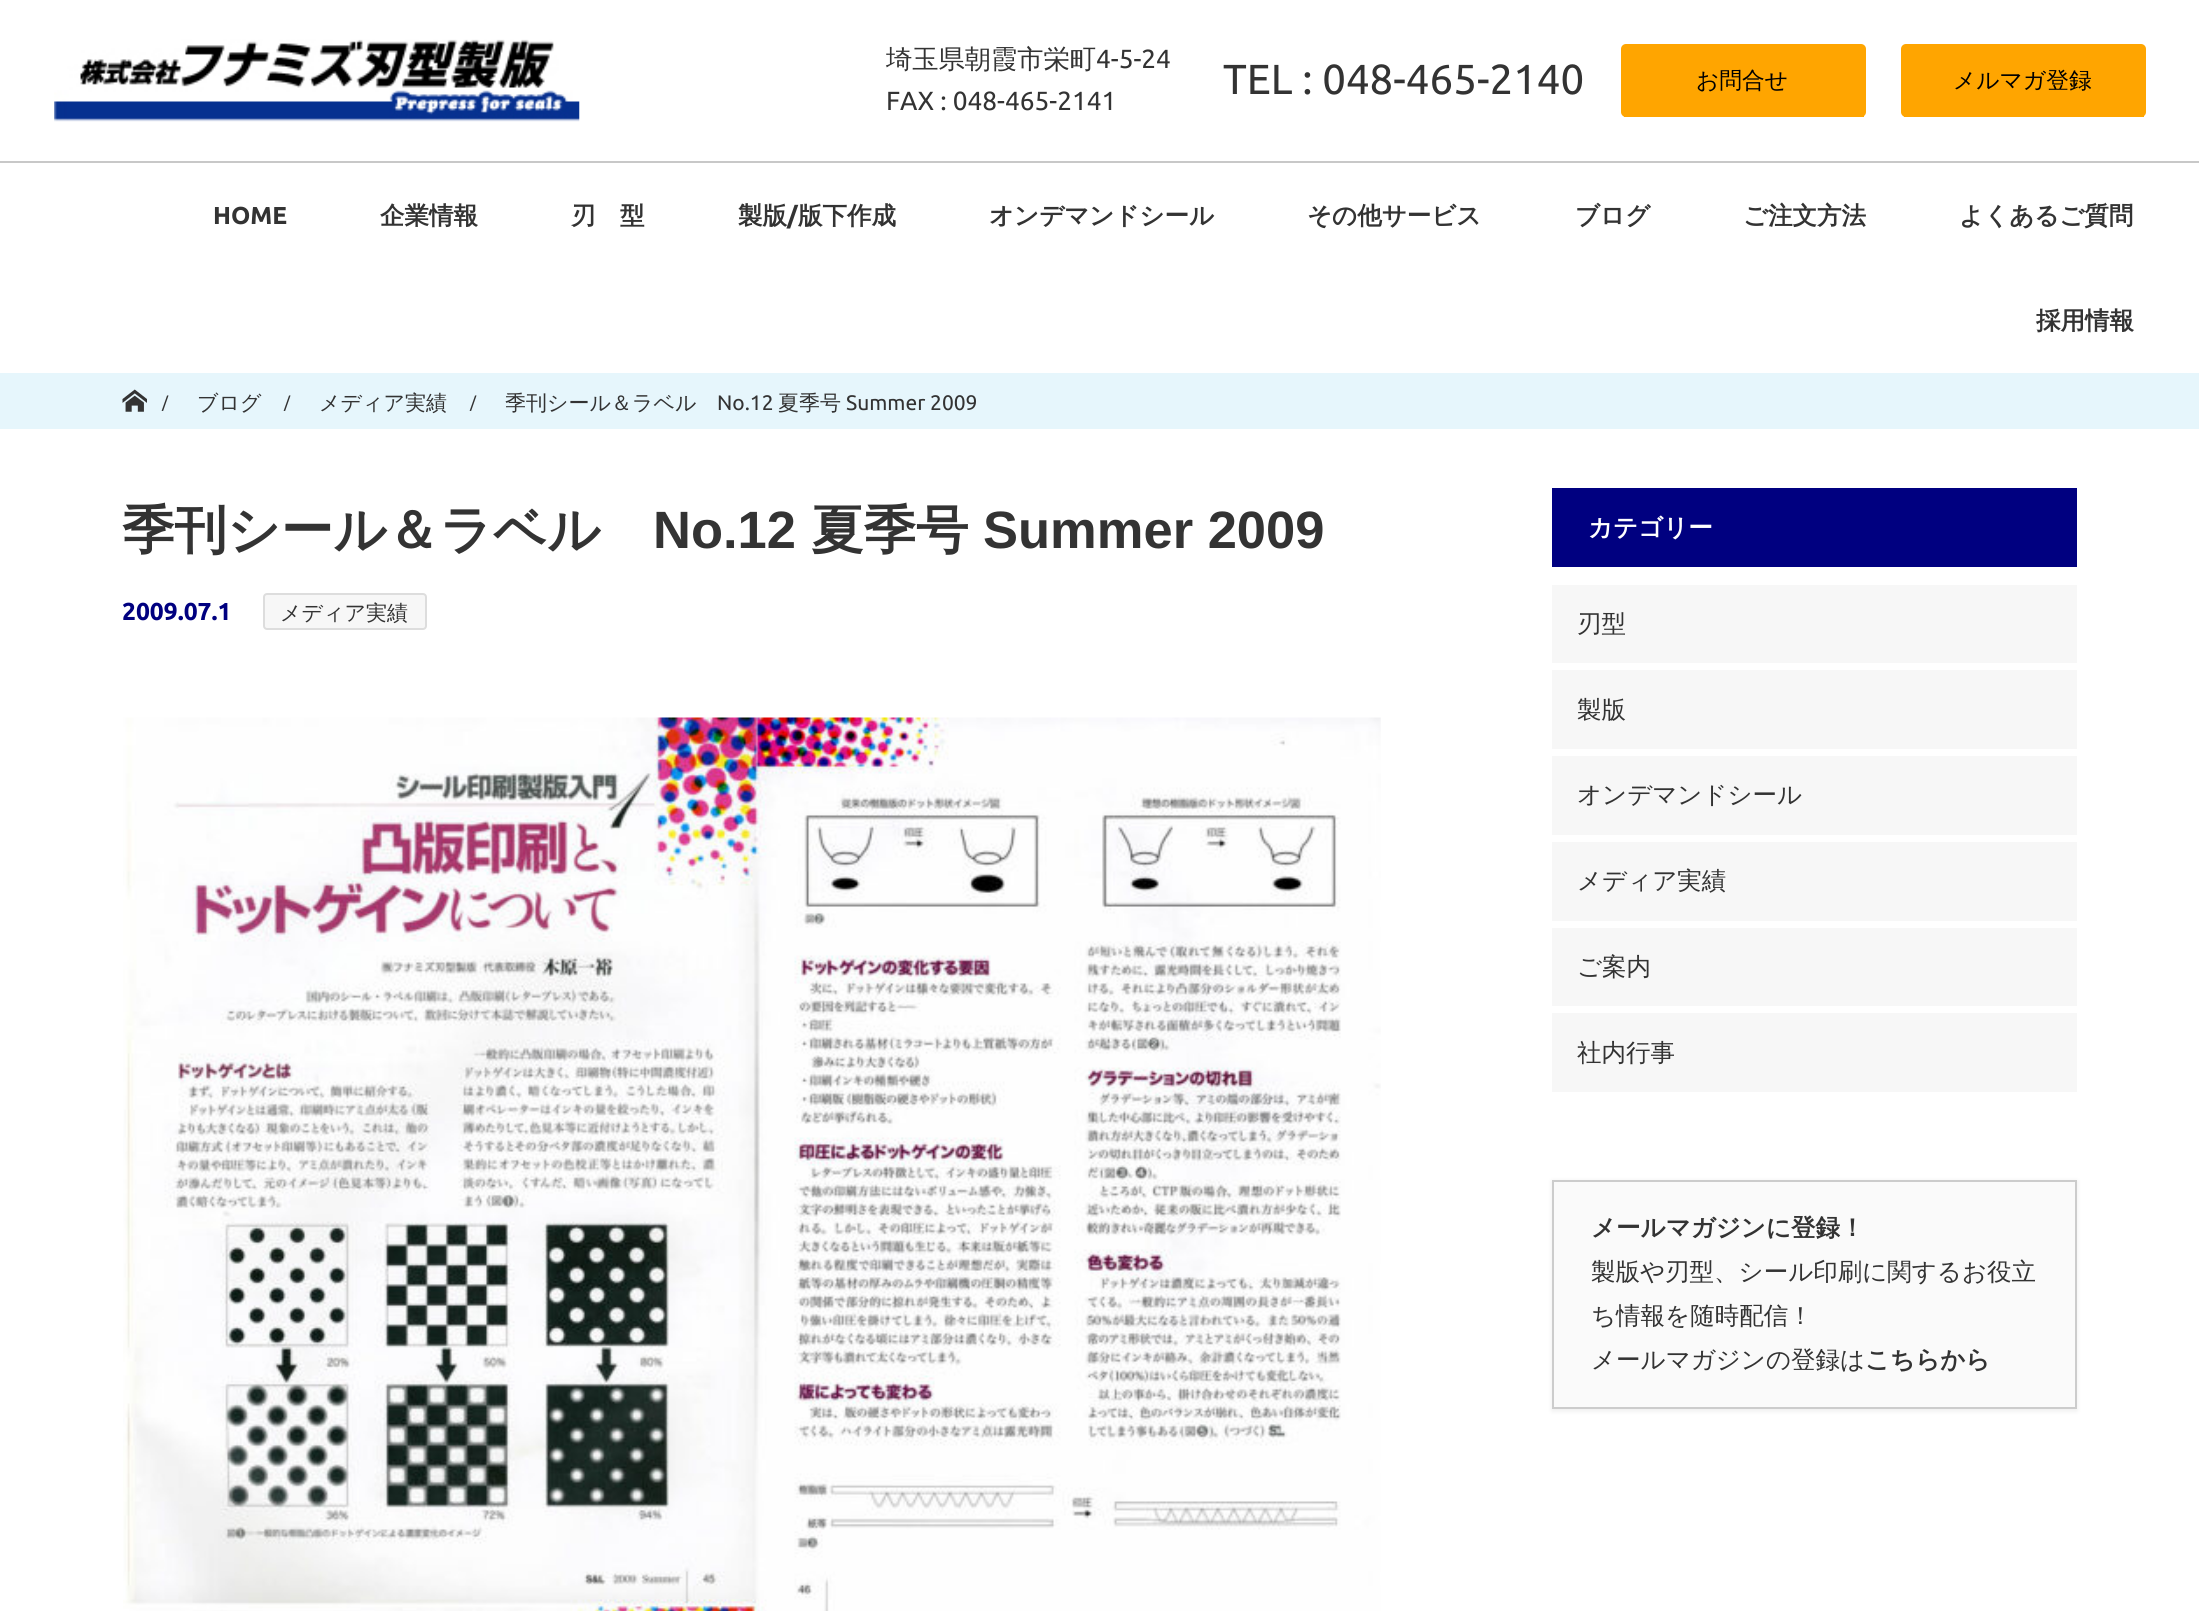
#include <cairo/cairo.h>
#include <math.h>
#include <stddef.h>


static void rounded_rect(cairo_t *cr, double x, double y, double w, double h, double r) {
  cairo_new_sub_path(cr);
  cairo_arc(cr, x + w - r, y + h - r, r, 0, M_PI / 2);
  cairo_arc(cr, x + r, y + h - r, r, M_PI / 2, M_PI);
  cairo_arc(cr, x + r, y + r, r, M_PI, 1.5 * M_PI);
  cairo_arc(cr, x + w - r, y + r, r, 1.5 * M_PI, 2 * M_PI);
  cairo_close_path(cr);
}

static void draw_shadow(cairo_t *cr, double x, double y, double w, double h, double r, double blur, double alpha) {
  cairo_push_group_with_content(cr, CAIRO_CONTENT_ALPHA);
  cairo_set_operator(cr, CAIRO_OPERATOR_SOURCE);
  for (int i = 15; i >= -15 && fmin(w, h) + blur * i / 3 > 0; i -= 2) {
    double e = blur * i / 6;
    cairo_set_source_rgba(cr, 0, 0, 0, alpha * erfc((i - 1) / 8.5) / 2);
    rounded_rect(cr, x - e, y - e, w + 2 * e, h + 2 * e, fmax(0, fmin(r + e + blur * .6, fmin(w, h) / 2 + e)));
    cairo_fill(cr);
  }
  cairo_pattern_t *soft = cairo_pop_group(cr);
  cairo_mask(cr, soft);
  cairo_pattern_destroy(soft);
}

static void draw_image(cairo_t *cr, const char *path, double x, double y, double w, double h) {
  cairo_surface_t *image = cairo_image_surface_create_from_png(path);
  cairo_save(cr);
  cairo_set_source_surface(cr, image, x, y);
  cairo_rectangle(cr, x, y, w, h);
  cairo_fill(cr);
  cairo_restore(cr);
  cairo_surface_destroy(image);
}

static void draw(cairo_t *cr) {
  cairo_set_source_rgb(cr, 1, 1, 1);
  cairo_paint(cr);
  cairo_set_source_rgb(cr, 200 / 255.0, 200 / 255.0, 200 / 255.0);
  cairo_rectangle(cr, 0, 161, 2199, 2);
  cairo_fill(cr);
  draw_image(cr, "images/1.png", 54, 39, 526, 83);
  cairo_set_source_rgb(cr, 1, 165 / 255.0, 0);
  rounded_rect(cr, 1621, 44, 245, 73, 5);
  cairo_fill(cr);
  cairo_rectangle(cr, 1624, 116, 240, 1);
  cairo_fill(cr);
  rounded_rect(cr, 1901, 44, 245, 73, 5);
  cairo_fill(cr);
  cairo_rectangle(cr, 1904, 116, 240, 1);
  cairo_fill(cr);
  cairo_set_source_rgb(cr, 230 / 255.0, 246 / 255.0, 252 / 255.0);
  cairo_rectangle(cr, 0, 373, 2199, 56);
  cairo_fill(cr);
  draw_image(cr, "images/2.png", 122, 389, 25, 23);
  cairo_set_source_rgb(cr, 247 / 255.0, 247 / 255.0, 247 / 255.0);
  rounded_rect(cr, 264, 594, 162, 35, 3);
  cairo_fill_preserve(cr);
  cairo_set_source_rgb(cr, 221 / 255.0, 221 / 255.0, 221 / 255.0);
  cairo_stroke(cr);
  draw_image(cr, "images/3.png", 123, 717, 1258, 894);
  cairo_set_source_rgb(cr, 0, 0, 128 / 255.0);
  cairo_rectangle(cr, 1552, 488, 525, 79);
  cairo_fill(cr);
  cairo_set_source_rgb(cr, 247 / 255.0, 247 / 255.0, 247 / 255.0);
  cairo_rectangle(cr, 1552, 585, 525, 78);
  cairo_fill(cr);
  cairo_rectangle(cr, 1552, 670, 525, 79);
  cairo_fill(cr);
  cairo_rectangle(cr, 1552, 756, 525, 79);
  cairo_fill(cr);
  cairo_rectangle(cr, 1552, 842, 525, 79);
  cairo_fill(cr);
  cairo_rectangle(cr, 1552, 928, 525, 78);
  cairo_fill(cr);
  cairo_rectangle(cr, 1552, 1013, 525, 79);
  cairo_fill(cr);
  cairo_set_source_rgb(cr, 195 / 255.0, 195 / 255.0, 195 / 255.0);
  draw_shadow(cr, 1552, 1181, 525, 230, 0, 2.5, 0.3);
  cairo_set_source_rgb(cr, 250 / 255.0, 250 / 255.0, 250 / 255.0);
  cairo_rectangle(cr, 1553, 1181, 523, 227);
  cairo_fill_preserve(cr);
  cairo_set_source_rgb(cr, 204 / 255.0, 204 / 255.0, 204 / 255.0);
  cairo_stroke(cr);
  cairo_select_font_face(cr, "WenQuanYi Zen Hei Medium", CAIRO_FONT_SLANT_NORMAL, CAIRO_FONT_WEIGHT_NORMAL);
  cairo_set_font_size(cr, 26.25);
  cairo_set_source_rgb(cr, 51 / 255.0, 51 / 255.0, 51 / 255.0);
  cairo_move_to(cr, 886, 68);
  cairo_show_text(cr, "埼玉県朝霞市栄町");
  cairo_select_font_face(cr, "Ubuntu", CAIRO_FONT_SLANT_NORMAL, CAIRO_FONT_WEIGHT_NORMAL);
  cairo_move_to(cr, 1096, 68);
  cairo_show_text(cr, "4-5-24");
  cairo_move_to(cr, 886, 110);
  cairo_show_text(cr, "FAX : 048-465-2141");
  cairo_set_font_size(cr, 42);
  cairo_move_to(cr, 1223, 94);
  cairo_show_text(cr, "TEL : 048-465-2140");
  cairo_select_font_face(cr, "WenQuanYi Zen Hei Medium", CAIRO_FONT_SLANT_NORMAL, CAIRO_FONT_WEIGHT_NORMAL);
  cairo_set_font_size(cr, 22.75);
  cairo_set_source_rgb(cr, 0, 0, 0);
  cairo_move_to(cr, 1696, 88);
  cairo_show_text(cr, "お問合せ");
  cairo_move_to(cr, 1953, 88);
  cairo_show_text(cr, "メルマガ登録");
  cairo_select_font_face(cr, "Ubuntu", CAIRO_FONT_SLANT_NORMAL, CAIRO_FONT_WEIGHT_BOLD);
  cairo_set_font_size(cr, 24.5);
  cairo_set_source_rgb(cr, 51 / 255.0, 51 / 255.0, 51 / 255.0);
  cairo_move_to(cr, 213, 224);
  cairo_show_text(cr, "HOME");
  cairo_select_font_face(cr, "WenQuanYi Zen Hei", CAIRO_FONT_SLANT_NORMAL, CAIRO_FONT_WEIGHT_BOLD);
  cairo_move_to(cr, 380, 224);
  cairo_show_text(cr, "企業情報");
  cairo_move_to(cr, 571, 224);
  cairo_show_text(cr, "刃　型");
  cairo_move_to(cr, 738, 224);
  cairo_show_text(cr, "製版");
  cairo_select_font_face(cr, "Ubuntu", CAIRO_FONT_SLANT_NORMAL, CAIRO_FONT_WEIGHT_BOLD);
  cairo_move_to(cr, 787, 224);
  cairo_show_text(cr, "/");
  cairo_select_font_face(cr, "WenQuanYi Zen Hei", CAIRO_FONT_SLANT_NORMAL, CAIRO_FONT_WEIGHT_BOLD);
  cairo_move_to(cr, 798, 224);
  cairo_show_text(cr, "版下作成");
  cairo_move_to(cr, 989, 224);
  cairo_show_text(cr, "オンデマンドシール");
  cairo_move_to(cr, 1307, 224);
  cairo_show_text(cr, "その他サービス");
  cairo_move_to(cr, 1575, 224);
  cairo_show_text(cr, "ブログ");
  cairo_move_to(cr, 1743, 224);
  cairo_show_text(cr, "ご注文方法");
  cairo_move_to(cr, 1959, 224);
  cairo_show_text(cr, "よくあるご質問");
  cairo_move_to(cr, 2036, 329);
  cairo_show_text(cr, "採用情報");
  cairo_select_font_face(cr, "Ubuntu", CAIRO_FONT_SLANT_NORMAL, CAIRO_FONT_WEIGHT_NORMAL);
  cairo_set_font_size(cr, 16);
  cairo_move_to(cr, 162, 408);
  cairo_show_text(cr, "/");
  cairo_select_font_face(cr, "WenQuanYi Zen Hei Medium", CAIRO_FONT_SLANT_NORMAL, CAIRO_FONT_WEIGHT_NORMAL);
  cairo_set_font_size(cr, 21);
  cairo_move_to(cr, 197, 410);
  cairo_show_text(cr, "ブログ");
  cairo_select_font_face(cr, "Ubuntu", CAIRO_FONT_SLANT_NORMAL, CAIRO_FONT_WEIGHT_NORMAL);
  cairo_set_font_size(cr, 16);
  cairo_move_to(cr, 284, 408);
  cairo_show_text(cr, "/");
  cairo_select_font_face(cr, "WenQuanYi Zen Hei Medium", CAIRO_FONT_SLANT_NORMAL, CAIRO_FONT_WEIGHT_NORMAL);
  cairo_set_font_size(cr, 21);
  cairo_move_to(cr, 319, 410);
  cairo_show_text(cr, "メディア実績");
  cairo_select_font_face(cr, "Ubuntu", CAIRO_FONT_SLANT_NORMAL, CAIRO_FONT_WEIGHT_NORMAL);
  cairo_set_font_size(cr, 16);
  cairo_move_to(cr, 470, 408);
  cairo_show_text(cr, "/");
  cairo_select_font_face(cr, "WenQuanYi Zen Hei Medium", CAIRO_FONT_SLANT_NORMAL, CAIRO_FONT_WEIGHT_NORMAL);
  cairo_set_font_size(cr, 21);
  cairo_move_to(cr, 505, 410);
  cairo_show_text(cr, "季刊シール＆ラベル");
  cairo_select_font_face(cr, "Ubuntu", CAIRO_FONT_SLANT_NORMAL, CAIRO_FONT_WEIGHT_NORMAL);
  cairo_move_to(cr, 717, 410);
  cairo_show_text(cr, "No.12");
  cairo_select_font_face(cr, "WenQuanYi Zen Hei Medium", CAIRO_FONT_SLANT_NORMAL, CAIRO_FONT_WEIGHT_NORMAL);
  cairo_move_to(cr, 778, 410);
  cairo_show_text(cr, "夏季号");
  cairo_select_font_face(cr, "Ubuntu", CAIRO_FONT_SLANT_NORMAL, CAIRO_FONT_WEIGHT_NORMAL);
  cairo_move_to(cr, 846, 410);
  cairo_show_text(cr, "Summer 2009");
  cairo_select_font_face(cr, "WenQuanYi Zen Hei", CAIRO_FONT_SLANT_NORMAL, CAIRO_FONT_WEIGHT_BOLD);
  cairo_set_font_size(cr, 52.5);
  cairo_move_to(cr, 122, 548);
  cairo_show_text(cr, "季刊シール＆ラベル");
  cairo_select_font_face(cr, "Liberation Sans", CAIRO_FONT_SLANT_NORMAL, CAIRO_FONT_WEIGHT_BOLD);
  cairo_move_to(cr, 653, 548);
  cairo_show_text(cr, "No.12");
  cairo_select_font_face(cr, "WenQuanYi Zen Hei", CAIRO_FONT_SLANT_NORMAL, CAIRO_FONT_WEIGHT_BOLD);
  cairo_move_to(cr, 811, 548);
  cairo_show_text(cr, "夏季号");
  cairo_select_font_face(cr, "Liberation Sans", CAIRO_FONT_SLANT_NORMAL, CAIRO_FONT_WEIGHT_BOLD);
  cairo_move_to(cr, 983, 548);
  cairo_show_text(cr, "Summer 2009");
  cairo_select_font_face(cr, "Ubuntu", CAIRO_FONT_SLANT_NORMAL, CAIRO_FONT_WEIGHT_BOLD);
  cairo_set_font_size(cr, 24.5);
  cairo_set_source_rgb(cr, 0, 0, 128 / 255.0);
  cairo_move_to(cr, 122, 620);
  cairo_show_text(cr, "2009.07.1");
  cairo_select_font_face(cr, "WenQuanYi Zen Hei Medium", CAIRO_FONT_SLANT_NORMAL, CAIRO_FONT_WEIGHT_NORMAL);
  cairo_set_font_size(cr, 21);
  cairo_set_source_rgb(cr, 51 / 255.0, 51 / 255.0, 51 / 255.0);
  cairo_move_to(cr, 280, 620);
  cairo_show_text(cr, "メディア実績");
  cairo_select_font_face(cr, "WenQuanYi Zen Hei", CAIRO_FONT_SLANT_NORMAL, CAIRO_FONT_WEIGHT_BOLD);
  cairo_set_font_size(cr, 24.5);
  cairo_set_source_rgb(cr, 1, 1, 1);
  cairo_move_to(cr, 1588, 536);
  cairo_show_text(cr, "カテゴリー");
  cairo_select_font_face(cr, "WenQuanYi Zen Hei Medium", CAIRO_FONT_SLANT_NORMAL, CAIRO_FONT_WEIGHT_NORMAL);
  cairo_set_source_rgb(cr, 51 / 255.0, 51 / 255.0, 51 / 255.0);
  cairo_move_to(cr, 1577, 632);
  cairo_show_text(cr, "刃型");
  cairo_move_to(cr, 1577, 718);
  cairo_show_text(cr, "製版");
  cairo_move_to(cr, 1577, 803);
  cairo_show_text(cr, "オンデマンドシール");
  cairo_move_to(cr, 1577, 889);
  cairo_show_text(cr, "メディア実績");
  cairo_move_to(cr, 1577, 975);
  cairo_show_text(cr, "ご案内");
  cairo_move_to(cr, 1577, 1061);
  cairo_show_text(cr, "社内行事");
  cairo_select_font_face(cr, "WenQuanYi Zen Hei", CAIRO_FONT_SLANT_NORMAL, CAIRO_FONT_WEIGHT_BOLD);
  cairo_move_to(cr, 1591, 1236);
  cairo_show_text(cr, "メールマガジンに登録！");
  cairo_select_font_face(cr, "WenQuanYi Zen Hei Medium", CAIRO_FONT_SLANT_NORMAL, CAIRO_FONT_WEIGHT_NORMAL);
  cairo_move_to(cr, 1591, 1280);
  cairo_show_text(cr, "製版や刃型、シール印刷に関するお役立");
  cairo_move_to(cr, 1591, 1324);
  cairo_show_text(cr, "ち情報を随時配信！");
  cairo_move_to(cr, 1591, 1368);
  cairo_show_text(cr, "メールマガジンの登録は");
  cairo_select_font_face(cr, "WenQuanYi Zen Hei", CAIRO_FONT_SLANT_NORMAL, CAIRO_FONT_WEIGHT_BOLD);
  cairo_move_to(cr, 1865, 1368);
  cairo_show_text(cr, "こちらから");
}

int main(void) {
  cairo_surface_t *surface = cairo_image_surface_create(CAIRO_FORMAT_RGB24, 2199, 1611);
  cairo_t *cr = cairo_create(surface);
  cairo_font_options_t *options = cairo_font_options_create();
  cairo_font_options_set_hint_metrics(options, CAIRO_HINT_METRICS_OFF);
  cairo_font_options_set_hint_style(options, CAIRO_HINT_STYLE_NONE);
  cairo_set_font_options(cr, options);
  cairo_set_miter_limit(cr, 4);
  draw(cr);
  cairo_surface_write_to_png(surface, "out.png");
  cairo_font_options_destroy(options);
  cairo_destroy(cr);
  cairo_surface_destroy(surface);
  return 0;
}
